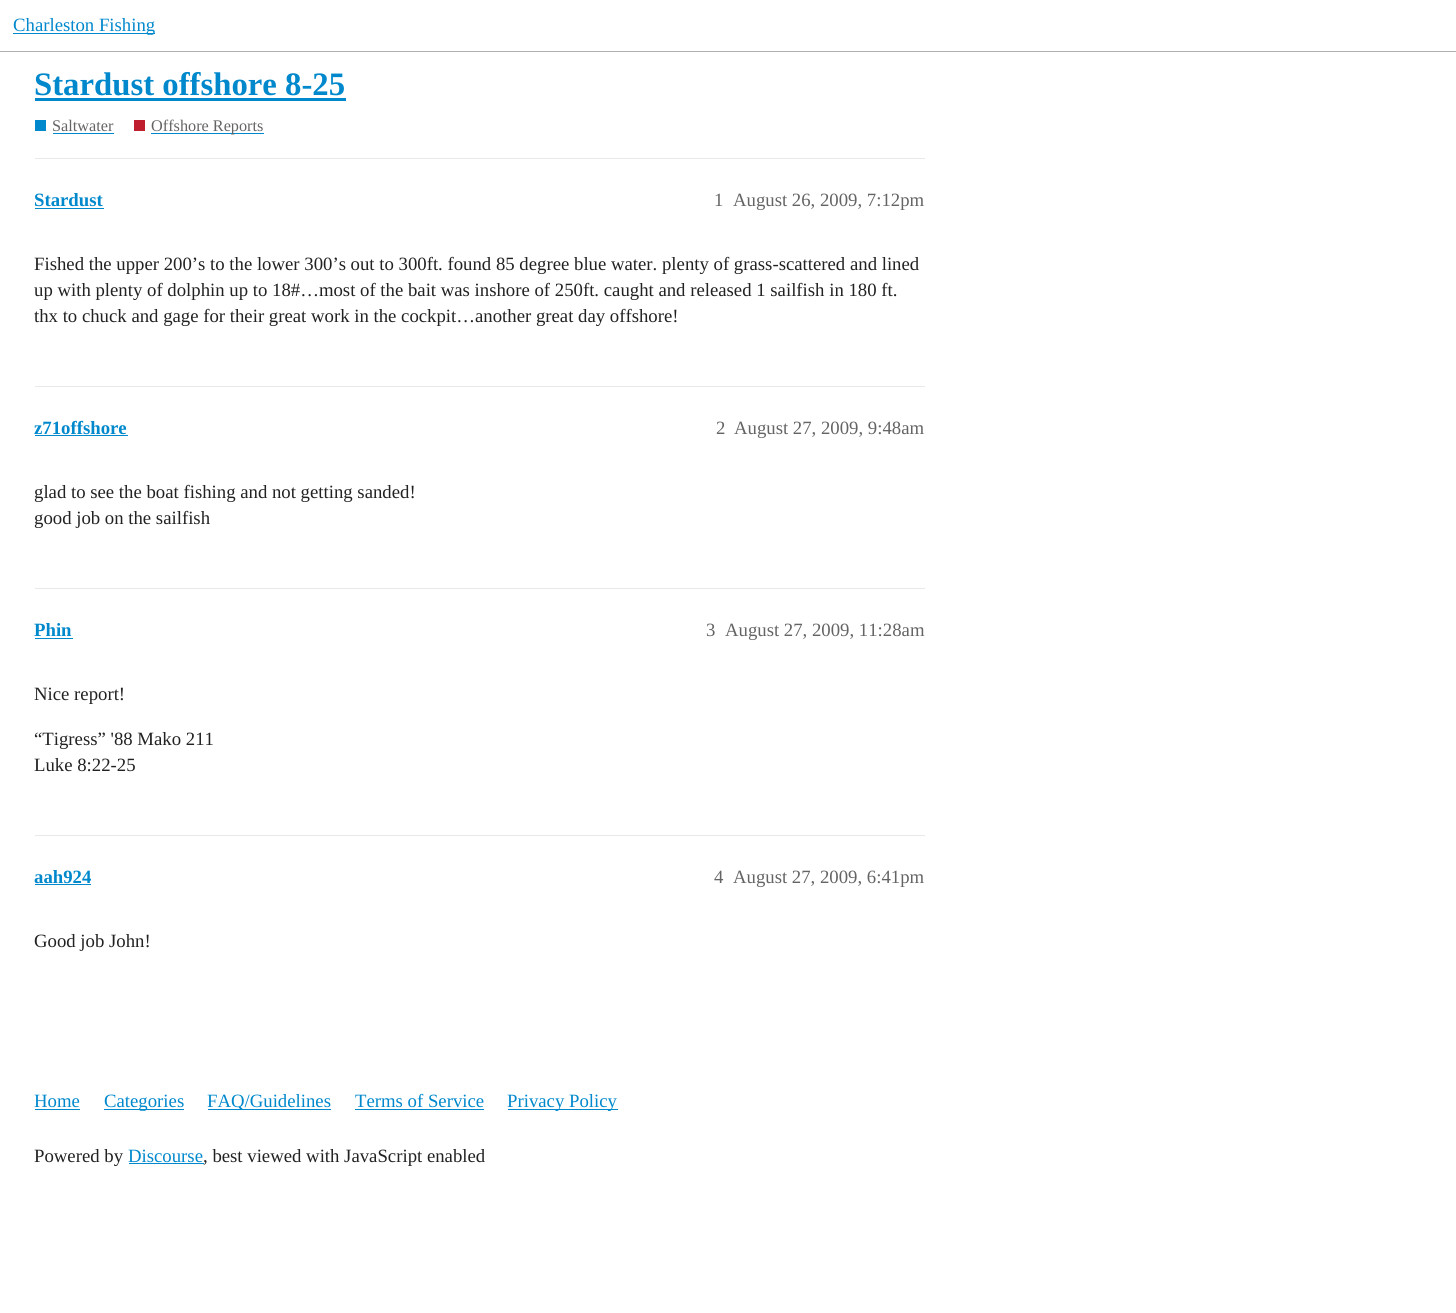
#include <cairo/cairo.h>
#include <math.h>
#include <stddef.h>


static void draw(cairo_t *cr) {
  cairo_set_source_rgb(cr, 1, 1, 1);
  cairo_paint(cr);
  cairo_set_source_rgb(cr, 175 / 255.0, 175 / 255.0, 175 / 255.0);
  cairo_rectangle(cr, 0, 51, 1456, 1);
  cairo_fill(cr);
  cairo_set_source_rgb(cr, 0, 136 / 255.0, 204 / 255.0);
  cairo_rectangle(cr, 13, 33, 142, 1);
  cairo_fill(cr);
  cairo_rectangle(cr, 35, 98, 311, 3);
  cairo_fill(cr);
  cairo_rectangle(cr, 35, 120, 11, 11);
  cairo_fill(cr);
  cairo_rectangle(cr, 53, 133, 61, 1);
  cairo_fill(cr);
  cairo_set_source_rgb(cr, 191 / 255.0, 30 / 255.0, 46 / 255.0);
  cairo_rectangle(cr, 134, 120, 11, 11);
  cairo_fill(cr);
  cairo_set_source_rgb(cr, 0, 136 / 255.0, 204 / 255.0);
  cairo_rectangle(cr, 151, 133, 113, 1);
  cairo_fill(cr);
  cairo_set_source_rgb(cr, 233 / 255.0, 233 / 255.0, 233 / 255.0);
  cairo_rectangle(cr, 35, 158, 890, 1);
  cairo_fill(cr);
  cairo_set_source_rgb(cr, 0, 136 / 255.0, 204 / 255.0);
  cairo_rectangle(cr, 35, 208, 69, 1);
  cairo_fill(cr);
  cairo_set_source_rgb(cr, 233 / 255.0, 233 / 255.0, 233 / 255.0);
  cairo_rectangle(cr, 35, 386, 890, 1);
  cairo_fill(cr);
  cairo_set_source_rgb(cr, 0, 136 / 255.0, 204 / 255.0);
  cairo_rectangle(cr, 35, 435, 93, 1);
  cairo_fill(cr);
  cairo_set_source_rgb(cr, 233 / 255.0, 233 / 255.0, 233 / 255.0);
  cairo_rectangle(cr, 35, 588, 890, 1);
  cairo_fill(cr);
  cairo_set_source_rgb(cr, 0, 136 / 255.0, 204 / 255.0);
  cairo_rectangle(cr, 35, 638, 38, 1);
  cairo_fill(cr);
  cairo_set_source_rgb(cr, 233 / 255.0, 233 / 255.0, 233 / 255.0);
  cairo_rectangle(cr, 35, 835, 890, 1);
  cairo_fill(cr);
  cairo_set_source_rgb(cr, 0, 136 / 255.0, 204 / 255.0);
  cairo_rectangle(cr, 35, 884, 56, 1);
  cairo_fill(cr);
  cairo_rectangle(cr, 35, 1109, 45, 1);
  cairo_fill(cr);
  cairo_rectangle(cr, 104, 1109, 80, 1);
  cairo_fill(cr);
  cairo_rectangle(cr, 208, 1109, 123, 1);
  cairo_fill(cr);
  cairo_rectangle(cr, 355, 1109, 129, 1);
  cairo_fill(cr);
  cairo_rectangle(cr, 508, 1109, 110, 1);
  cairo_fill(cr);
  cairo_rectangle(cr, 129, 1163, 75, 1);
  cairo_fill(cr);
  cairo_select_font_face(cr, "Liberation Serif", CAIRO_FONT_SLANT_NORMAL, CAIRO_FONT_WEIGHT_NORMAL);
  cairo_set_font_size(cr, 18.75);
  cairo_move_to(cr, 13, 31);
  cairo_show_text(cr, "Charleston Fishing");
  cairo_select_font_face(cr, "Liberation Serif", CAIRO_FONT_SLANT_NORMAL, CAIRO_FONT_WEIGHT_BOLD);
  cairo_set_font_size(cr, 32.75);
  cairo_move_to(cr, 34, 95);
  cairo_show_text(cr, "Stardust offshore 8-25");
  cairo_select_font_face(cr, "Liberation Serif", CAIRO_FONT_SLANT_NORMAL, CAIRO_FONT_WEIGHT_NORMAL);
  cairo_set_font_size(cr, 16.25);
  cairo_set_source_rgb(cr, 100 / 255.0, 100 / 255.0, 100 / 255.0);
  cairo_move_to(cr, 52, 131);
  cairo_show_text(cr, "Saltwater");
  cairo_move_to(cr, 151, 131);
  cairo_show_text(cr, "Offshore Reports");
  cairo_select_font_face(cr, "Liberation Serif", CAIRO_FONT_SLANT_NORMAL, CAIRO_FONT_WEIGHT_BOLD);
  cairo_set_font_size(cr, 18.75);
  cairo_set_source_rgb(cr, 0, 136 / 255.0, 204 / 255.0);
  cairo_move_to(cr, 34, 206);
  cairo_show_text(cr, "Stardust");
  cairo_select_font_face(cr, "Liberation Serif", CAIRO_FONT_SLANT_NORMAL, CAIRO_FONT_WEIGHT_NORMAL);
  cairo_set_source_rgb(cr, 100 / 255.0, 100 / 255.0, 100 / 255.0);
  cairo_move_to(cr, 714, 206);
  cairo_show_text(cr, "1");
  cairo_move_to(cr, 733, 206);
  cairo_show_text(cr, "August 26, 2009, 7:12pm");
  cairo_set_source_rgb(cr, 34 / 255.0, 34 / 255.0, 34 / 255.0);
  cairo_move_to(cr, 34, 270);
  cairo_show_text(cr, "Fished the upper 200’s to the lower 300’s out to 300ft. found 85 degree blue water. plenty of grass-scattered and lined");
  cairo_move_to(cr, 34, 296);
  cairo_show_text(cr, "up with plenty of dolphin up to 18#…most of the bait was inshore of 250ft. caught and released 1 sailfish in 180 ft.");
  cairo_move_to(cr, 34, 322);
  cairo_show_text(cr, "thx to chuck and gage for their great work in the cockpit…another great day offshore!");
  cairo_select_font_face(cr, "Liberation Serif", CAIRO_FONT_SLANT_NORMAL, CAIRO_FONT_WEIGHT_BOLD);
  cairo_set_source_rgb(cr, 0, 136 / 255.0, 204 / 255.0);
  cairo_move_to(cr, 34, 434);
  cairo_show_text(cr, "z71offshore");
  cairo_select_font_face(cr, "Liberation Serif", CAIRO_FONT_SLANT_NORMAL, CAIRO_FONT_WEIGHT_NORMAL);
  cairo_set_source_rgb(cr, 100 / 255.0, 100 / 255.0, 100 / 255.0);
  cairo_move_to(cr, 716, 434);
  cairo_show_text(cr, "2");
  cairo_move_to(cr, 734, 434);
  cairo_show_text(cr, "August 27, 2009, 9:48am");
  cairo_set_source_rgb(cr, 34 / 255.0, 34 / 255.0, 34 / 255.0);
  cairo_move_to(cr, 34, 498);
  cairo_show_text(cr, "glad to see the boat fishing and not getting sanded!");
  cairo_move_to(cr, 34, 524);
  cairo_show_text(cr, "good job on the sailfish");
  cairo_select_font_face(cr, "Liberation Serif", CAIRO_FONT_SLANT_NORMAL, CAIRO_FONT_WEIGHT_BOLD);
  cairo_set_source_rgb(cr, 0, 136 / 255.0, 204 / 255.0);
  cairo_move_to(cr, 34, 636);
  cairo_show_text(cr, "Phin");
  cairo_select_font_face(cr, "Liberation Serif", CAIRO_FONT_SLANT_NORMAL, CAIRO_FONT_WEIGHT_NORMAL);
  cairo_set_source_rgb(cr, 100 / 255.0, 100 / 255.0, 100 / 255.0);
  cairo_move_to(cr, 706, 636);
  cairo_show_text(cr, "3");
  cairo_move_to(cr, 725, 636);
  cairo_show_text(cr, "August 27, 2009, 11:28am");
  cairo_set_source_rgb(cr, 34 / 255.0, 34 / 255.0, 34 / 255.0);
  cairo_move_to(cr, 34, 700);
  cairo_show_text(cr, "Nice report!");
  cairo_move_to(cr, 34, 745);
  cairo_show_text(cr, "“Tigress” '88 Mako 211");
  cairo_move_to(cr, 34, 771);
  cairo_show_text(cr, "Luke 8:22-25");
  cairo_select_font_face(cr, "Liberation Serif", CAIRO_FONT_SLANT_NORMAL, CAIRO_FONT_WEIGHT_BOLD);
  cairo_set_source_rgb(cr, 0, 136 / 255.0, 204 / 255.0);
  cairo_move_to(cr, 34, 883);
  cairo_show_text(cr, "aah924");
  cairo_select_font_face(cr, "Liberation Serif", CAIRO_FONT_SLANT_NORMAL, CAIRO_FONT_WEIGHT_NORMAL);
  cairo_set_source_rgb(cr, 100 / 255.0, 100 / 255.0, 100 / 255.0);
  cairo_move_to(cr, 714, 883);
  cairo_show_text(cr, "4");
  cairo_move_to(cr, 733, 883);
  cairo_show_text(cr, "August 27, 2009, 6:41pm");
  cairo_set_source_rgb(cr, 34 / 255.0, 34 / 255.0, 34 / 255.0);
  cairo_move_to(cr, 34, 947);
  cairo_show_text(cr, "Good job John!");
  cairo_set_source_rgb(cr, 0, 136 / 255.0, 204 / 255.0);
  cairo_move_to(cr, 34, 1107);
  cairo_show_text(cr, "Home");
  cairo_move_to(cr, 104, 1107);
  cairo_show_text(cr, "Categories");
  cairo_move_to(cr, 207, 1107);
  cairo_show_text(cr, "FAQ/Guidelines");
  cairo_move_to(cr, 355, 1107);
  cairo_show_text(cr, "Terms of Service");
  cairo_move_to(cr, 507, 1107);
  cairo_show_text(cr, "Privacy Policy");
  cairo_set_source_rgb(cr, 34 / 255.0, 34 / 255.0, 34 / 255.0);
  cairo_move_to(cr, 34, 1162);
  cairo_show_text(cr, "Powered by");
  cairo_set_source_rgb(cr, 0, 136 / 255.0, 204 / 255.0);
  cairo_move_to(cr, 128, 1162);
  cairo_show_text(cr, "Discourse");
  cairo_set_source_rgb(cr, 34 / 255.0, 34 / 255.0, 34 / 255.0);
  cairo_move_to(cr, 203, 1162);
  cairo_show_text(cr, ", best viewed with JavaScript enabled");
}

int main(void) {
  cairo_surface_t *surface = cairo_image_surface_create(CAIRO_FORMAT_RGB24, 1456, 1313);
  cairo_t *cr = cairo_create(surface);
  cairo_font_options_t *options = cairo_font_options_create();
  cairo_font_options_set_hint_metrics(options, CAIRO_HINT_METRICS_OFF);
  cairo_font_options_set_hint_style(options, CAIRO_HINT_STYLE_NONE);
  cairo_set_font_options(cr, options);
  cairo_set_miter_limit(cr, 4);
  draw(cr);
  cairo_surface_write_to_png(surface, "out.png");
  cairo_font_options_destroy(options);
  cairo_destroy(cr);
  cairo_surface_destroy(surface);
  return 0;
}
